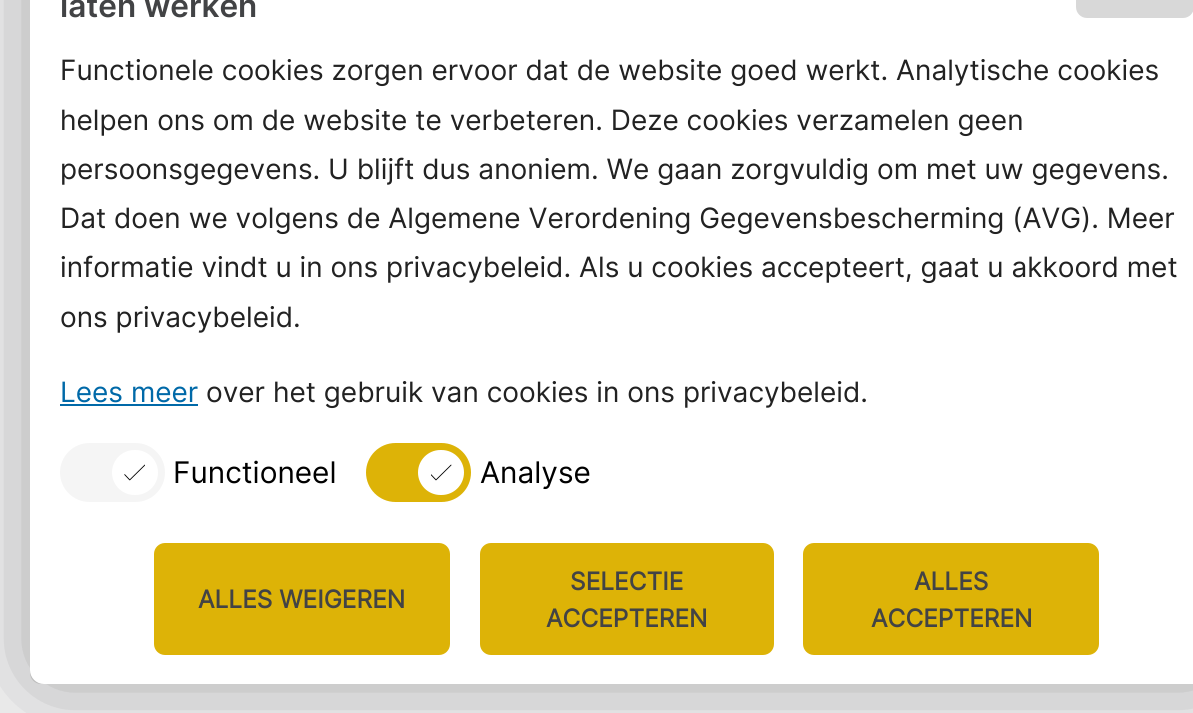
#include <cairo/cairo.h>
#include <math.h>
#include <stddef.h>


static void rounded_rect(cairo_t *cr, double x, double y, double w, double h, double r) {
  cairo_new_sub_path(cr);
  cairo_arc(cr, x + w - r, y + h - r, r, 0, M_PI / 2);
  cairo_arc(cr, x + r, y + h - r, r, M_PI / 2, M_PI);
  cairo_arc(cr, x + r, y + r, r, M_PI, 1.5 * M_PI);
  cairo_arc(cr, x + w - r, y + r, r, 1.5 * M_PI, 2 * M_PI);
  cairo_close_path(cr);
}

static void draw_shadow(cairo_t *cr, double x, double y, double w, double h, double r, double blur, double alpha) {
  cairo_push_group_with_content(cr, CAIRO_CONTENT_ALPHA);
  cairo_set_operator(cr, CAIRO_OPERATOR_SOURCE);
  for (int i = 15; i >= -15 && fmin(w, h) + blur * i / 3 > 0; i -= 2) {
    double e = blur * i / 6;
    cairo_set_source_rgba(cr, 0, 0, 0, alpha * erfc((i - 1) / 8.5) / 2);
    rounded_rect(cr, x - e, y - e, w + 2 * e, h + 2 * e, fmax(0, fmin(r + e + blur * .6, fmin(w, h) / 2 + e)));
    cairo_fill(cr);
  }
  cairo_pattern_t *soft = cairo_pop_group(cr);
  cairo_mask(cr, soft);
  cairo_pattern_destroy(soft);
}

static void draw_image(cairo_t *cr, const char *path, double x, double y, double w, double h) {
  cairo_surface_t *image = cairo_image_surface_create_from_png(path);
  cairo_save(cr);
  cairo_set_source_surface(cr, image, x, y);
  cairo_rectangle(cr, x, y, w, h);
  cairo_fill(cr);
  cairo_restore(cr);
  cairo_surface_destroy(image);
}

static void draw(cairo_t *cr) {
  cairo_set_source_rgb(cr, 245 / 255.0, 245 / 255.0, 246 / 255.0);
  cairo_paint(cr);
  rounded_rect(cr, 31, 640, 85, 43, 10);
  cairo_set_source_rgb(cr, 216 / 255.0, 216 / 255.0, 216 / 255.0);
  cairo_stroke(cr);
  cairo_set_source_rgb(cr, 0, 0, 0);
  draw_shadow(cr, 30, -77, 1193, 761, 14, 52.5, 0.33);
  cairo_set_source_rgb(cr, 1, 1, 1);
  rounded_rect(cr, 30, -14, 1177, 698, 14);
  cairo_fill(cr);
  cairo_set_source_rgb(cr, 216 / 255.0, 216 / 255.0, 216 / 255.0);
  rounded_rect(cr, 1076, -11, 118, 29, 11);
  cairo_fill(cr);
  cairo_set_source_rgb(cr, 0, 105 / 255.0, 168 / 255.0);
  cairo_rectangle(cr, 60, 404, 138, 2);
  cairo_fill(cr);
  cairo_set_source_rgb(cr, 245 / 255.0, 245 / 255.0, 245 / 255.0);
  rounded_rect(cr, 60, 443, 105, 59, 29.5);
  cairo_fill(cr);
  cairo_set_source_rgb(cr, 1, 1, 1);
  rounded_rect(cr, 112, 450, 46, 45, 22.5);
  cairo_fill(cr);
  draw_image(cr, "images/1.png", 124, 464, 21, 17);
  cairo_set_source_rgb(cr, 221 / 255.0, 179 / 255.0, 7 / 255.0);
  rounded_rect(cr, 366, 443, 105, 59, 29.5);
  cairo_fill(cr);
  cairo_set_source_rgb(cr, 1, 1, 1);
  rounded_rect(cr, 418, 450, 46, 45, 22.5);
  cairo_fill(cr);
  draw_image(cr, "images/2.png", 431, 464, 21, 17);
  cairo_set_source_rgb(cr, 221 / 255.0, 179 / 255.0, 7 / 255.0);
  rounded_rect(cr, 154, 543, 296, 112, 11);
  cairo_fill(cr);
  rounded_rect(cr, 480, 543, 294, 112, 11);
  cairo_fill(cr);
  rounded_rect(cr, 803, 543, 296, 112, 11);
  cairo_fill(cr);
  cairo_select_font_face(cr, "Inter SemiBold", CAIRO_FONT_SLANT_NORMAL, CAIRO_FONT_WEIGHT_NORMAL);
  cairo_set_font_size(cr, 31.5);
  cairo_set_source_rgb(cr, 66 / 255.0, 67 / 255.0, 69 / 255.0);
  cairo_move_to(cr, 60, 17);
  cairo_show_text(cr, "laten werken");
  cairo_select_font_face(cr, "Inter", CAIRO_FONT_SLANT_NORMAL, CAIRO_FONT_WEIGHT_NORMAL);
  cairo_set_font_size(cr, 28);
  cairo_set_source_rgb(cr, 34 / 255.0, 34 / 255.0, 34 / 255.0);
  cairo_move_to(cr, 60, 80);
  cairo_show_text(cr, "Functionele cookies zorgen ervoor dat de website goed werkt. Analytische cookies");
  cairo_move_to(cr, 60, 130);
  cairo_show_text(cr, "helpen ons om de website te verbeteren. Deze cookies verzamelen geen");
  cairo_move_to(cr, 60, 179);
  cairo_show_text(cr, "persoonsgegevens. U blijft dus anoniem. We gaan zorgvuldig om met uw gegevens.");
  cairo_move_to(cr, 60, 228);
  cairo_show_text(cr, "Dat doen we volgens de Algemene Verordening Gegevensbescherming (AVG). Meer");
  cairo_move_to(cr, 60, 277);
  cairo_show_text(cr, "informatie vindt u in ons privacybeleid. Als u cookies accepteert, gaat u akkoord met");
  cairo_move_to(cr, 60, 327);
  cairo_show_text(cr, "ons privacybeleid.");
  cairo_set_source_rgb(cr, 0, 105 / 255.0, 168 / 255.0);
  cairo_move_to(cr, 60, 402);
  cairo_show_text(cr, "Lees meer");
  cairo_set_source_rgb(cr, 34 / 255.0, 34 / 255.0, 34 / 255.0);
  cairo_move_to(cr, 206, 402);
  cairo_show_text(cr, "over het gebruik van cookies in ons privacybeleid.");
  cairo_set_font_size(cr, 29.75);
  cairo_set_source_rgb(cr, 0, 0, 0);
  cairo_move_to(cr, 173, 483);
  cairo_show_text(cr, "Functioneel");
  cairo_move_to(cr, 480, 483);
  cairo_show_text(cr, "Analyse");
  cairo_select_font_face(cr, "Inter", CAIRO_FONT_SLANT_NORMAL, CAIRO_FONT_WEIGHT_BOLD);
  cairo_set_font_size(cr, 24.5);
  cairo_set_source_rgb(cr, 66 / 255.0, 67 / 255.0, 69 / 255.0);
  cairo_move_to(cr, 198, 608);
  cairo_show_text(cr, "ALLES WEIGEREN");
  cairo_move_to(cr, 570, 590);
  cairo_show_text(cr, "SELECTIE");
  cairo_move_to(cr, 546, 627);
  cairo_show_text(cr, "ACCEPTEREN");
  cairo_move_to(cr, 914, 590);
  cairo_show_text(cr, "ALLES");
  cairo_move_to(cr, 871, 627);
  cairo_show_text(cr, "ACCEPTEREN");
}

int main(void) {
  cairo_surface_t *surface = cairo_image_surface_create(CAIRO_FORMAT_RGB24, 1193, 713);
  cairo_t *cr = cairo_create(surface);
  cairo_font_options_t *options = cairo_font_options_create();
  cairo_font_options_set_hint_metrics(options, CAIRO_HINT_METRICS_OFF);
  cairo_font_options_set_hint_style(options, CAIRO_HINT_STYLE_NONE);
  cairo_set_font_options(cr, options);
  cairo_set_miter_limit(cr, 4);
  draw(cr);
  cairo_surface_write_to_png(surface, "out.png");
  cairo_font_options_destroy(options);
  cairo_destroy(cr);
  cairo_surface_destroy(surface);
  return 0;
}
